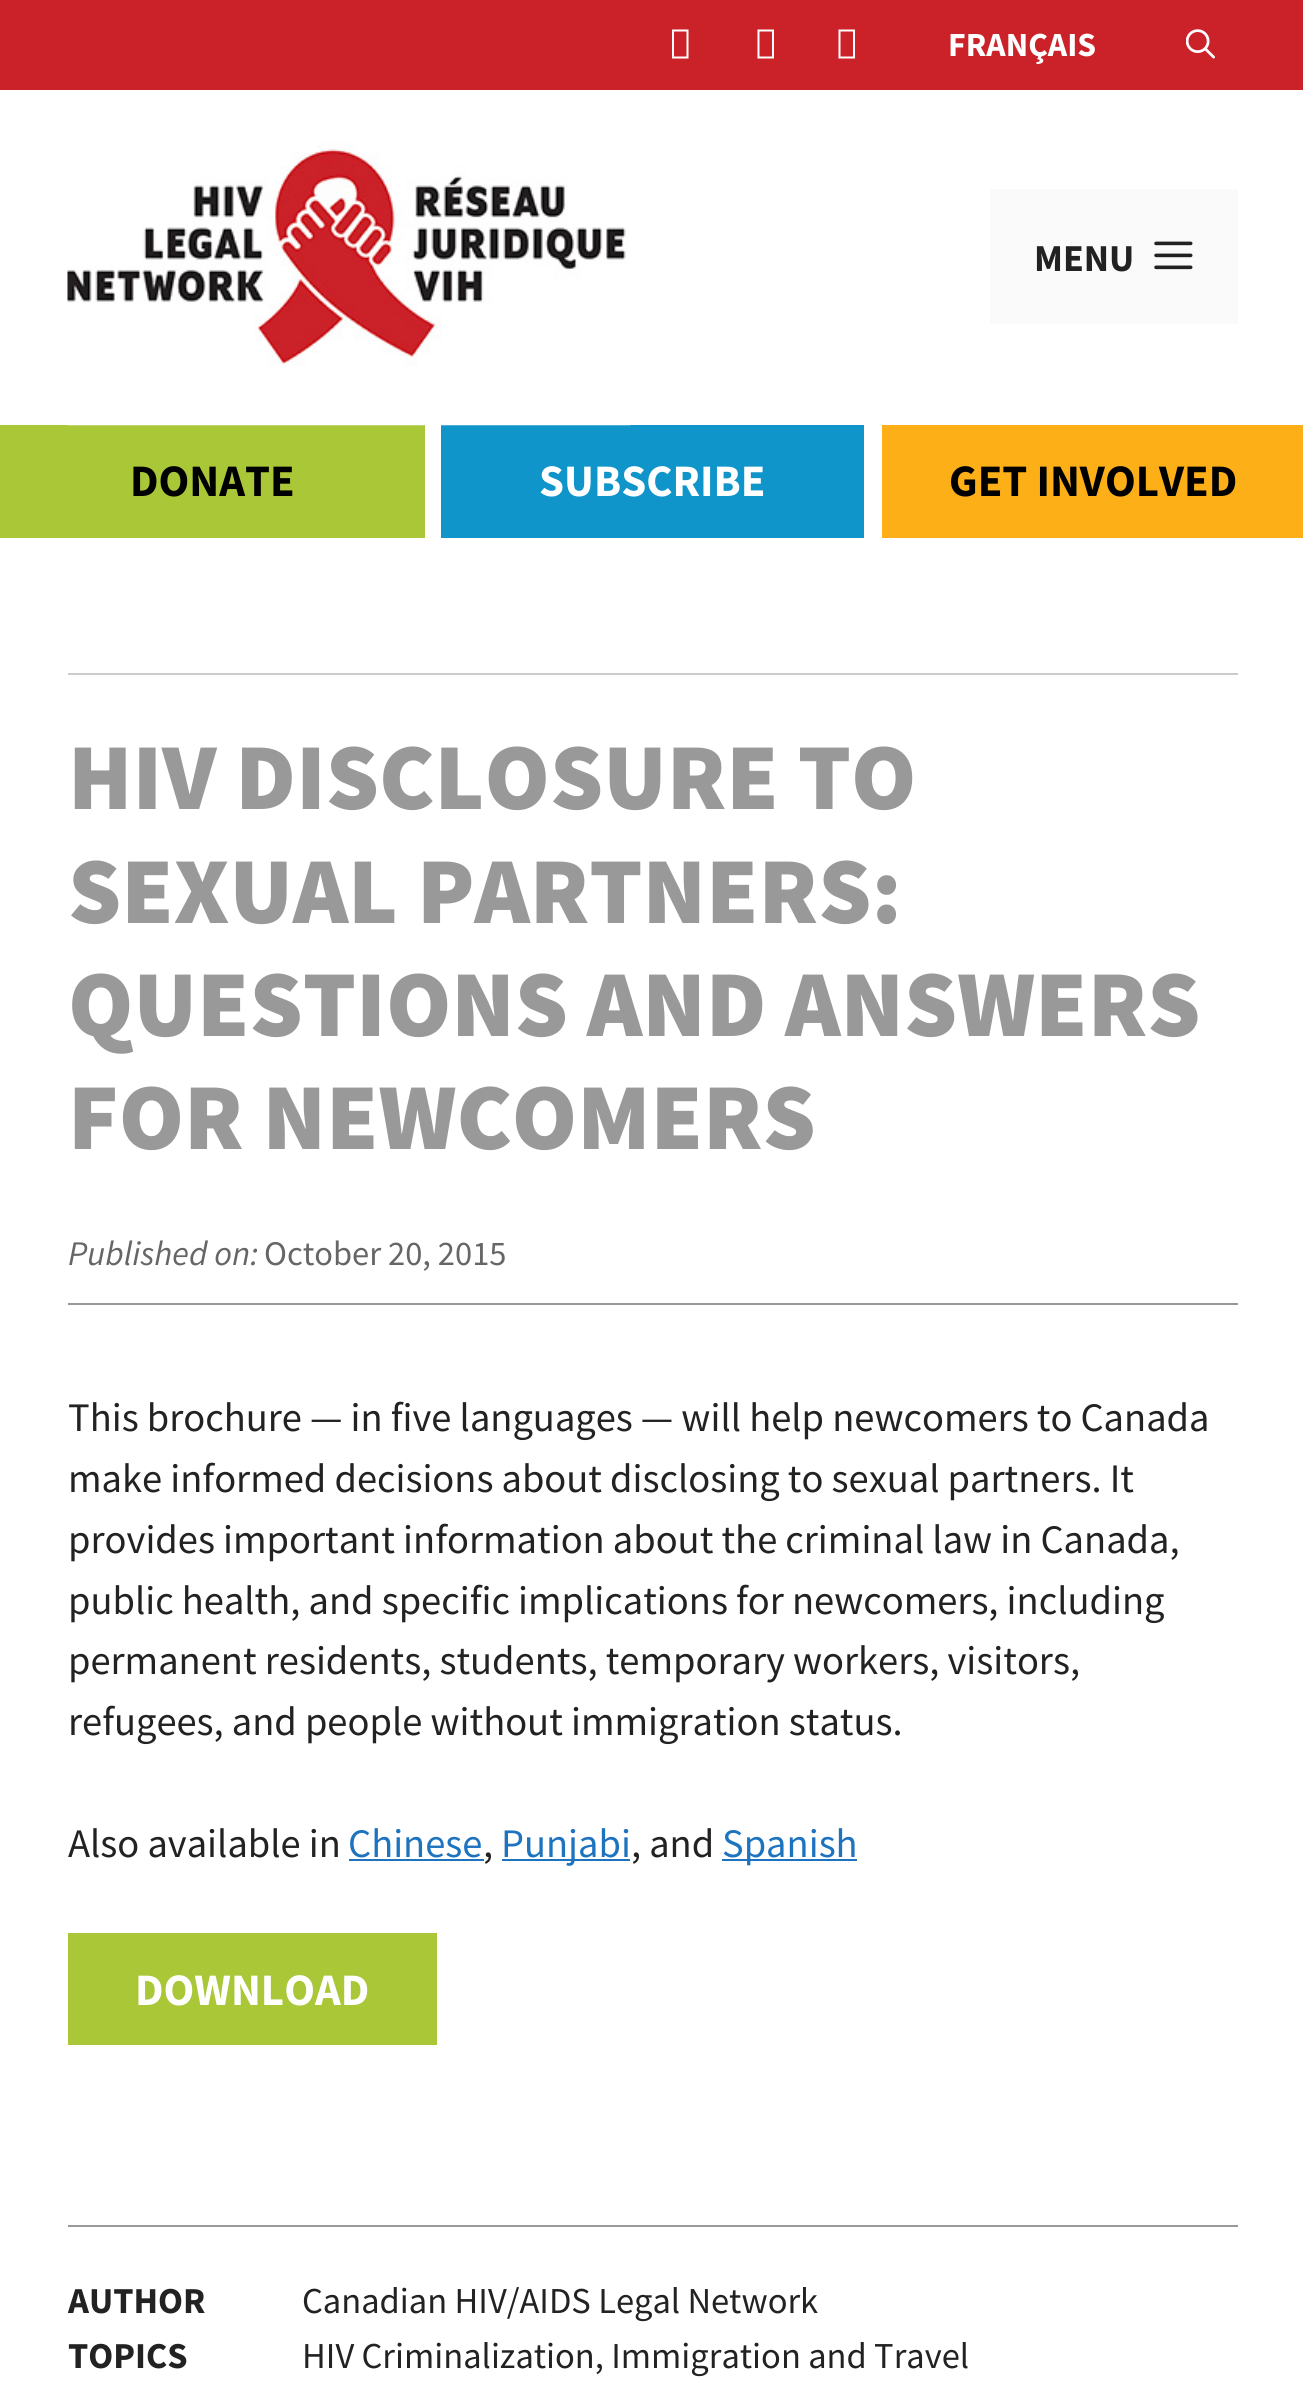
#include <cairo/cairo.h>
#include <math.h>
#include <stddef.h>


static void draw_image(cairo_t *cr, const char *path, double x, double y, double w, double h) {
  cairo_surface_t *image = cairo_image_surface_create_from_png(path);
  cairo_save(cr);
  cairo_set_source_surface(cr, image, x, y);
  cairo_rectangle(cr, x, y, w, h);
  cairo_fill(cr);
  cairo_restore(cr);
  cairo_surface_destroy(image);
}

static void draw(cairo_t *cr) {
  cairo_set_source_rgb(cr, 1, 1, 1);
  cairo_paint(cr);
  cairo_set_source_rgb(cr, 203 / 255.0, 34 / 255.0, 41 / 255.0);
  cairo_rectangle(cr, 0, 0, 1303, 90);
  cairo_fill(cr);
  cairo_set_source_rgb(cr, 1, 1, 1);
  cairo_new_path(cr);
  cairo_move_to(cr, 672, 58.5);
  cairo_line_to(cr, 672, 29.5);
  cairo_line_to(cr, 688.5, 29.5);
  cairo_line_to(cr, 688.5, 58.5);
  cairo_close_path(cr);
  cairo_move_to(cr, 674, 56.5);
  cairo_line_to(cr, 686.5, 56.5);
  cairo_line_to(cr, 686.5, 31.5);
  cairo_line_to(cr, 674, 31.5);
  cairo_close_path(cr);
  cairo_fill(cr);
  cairo_new_path(cr);
  cairo_move_to(cr, 757.5, 58.5);
  cairo_line_to(cr, 757.5, 29.5);
  cairo_line_to(cr, 774, 29.5);
  cairo_line_to(cr, 774, 58.5);
  cairo_close_path(cr);
  cairo_move_to(cr, 759.5, 56.5);
  cairo_line_to(cr, 772, 56.5);
  cairo_line_to(cr, 772, 31.5);
  cairo_line_to(cr, 759.5, 31.5);
  cairo_close_path(cr);
  cairo_fill(cr);
  cairo_new_path(cr);
  cairo_move_to(cr, 838.5, 58.5);
  cairo_line_to(cr, 838.5, 29.5);
  cairo_line_to(cr, 855, 29.5);
  cairo_line_to(cr, 855, 58.5);
  cairo_close_path(cr);
  cairo_move_to(cr, 840.5, 56.5);
  cairo_line_to(cr, 853, 56.5);
  cairo_line_to(cr, 853, 31.5);
  cairo_line_to(cr, 840.5, 31.5);
  cairo_close_path(cr);
  cairo_fill(cr);
  draw_image(cr, "images/1.png", 1186, 29, 29, 30);
  cairo_set_source_rgb(cr, 170 / 255.0, 199 / 255.0, 55 / 255.0);
  cairo_rectangle(cr, 0, 425, 425, 113);
  cairo_fill(cr);
  cairo_set_source_rgb(cr, 16 / 255.0, 149 / 255.0, 203 / 255.0);
  cairo_rectangle(cr, 441, 425, 423, 113);
  cairo_fill(cr);
  draw_image(cr, "images/2.png", 67, 142, 563, 284);
  cairo_set_source_rgb(cr, 250 / 255.0, 250 / 255.0, 250 / 255.0);
  cairo_rectangle(cr, 990, 189, 248, 135);
  cairo_fill(cr);
  draw_image(cr, "images/3.png", 1154, 241, 39, 29);
  cairo_set_source_rgb(cr, 253 / 255.0, 175 / 255.0, 23 / 255.0);
  cairo_rectangle(cr, 882, 425, 421, 113);
  cairo_fill(cr);
  cairo_set_source_rgb(cr, 204 / 255.0, 204 / 255.0, 204 / 255.0);
  cairo_rectangle(cr, 68, 673, 1170, 2);
  cairo_fill(cr);
  cairo_set_source_rgb(cr, 153 / 255.0, 153 / 255.0, 153 / 255.0);
  cairo_rectangle(cr, 68, 1303, 1170, 2);
  cairo_fill(cr);
  cairo_set_source_rgb(cr, 30 / 255.0, 115 / 255.0, 190 / 255.0);
  cairo_rectangle(cr, 349, 1859, 135, 2);
  cairo_fill(cr);
  cairo_rectangle(cr, 502, 1859, 128, 2);
  cairo_fill(cr);
  cairo_rectangle(cr, 722, 1859, 135, 2);
  cairo_fill(cr);
  cairo_set_source_rgb(cr, 170 / 255.0, 199 / 255.0, 55 / 255.0);
  cairo_rectangle(cr, 68, 1933, 369, 112);
  cairo_fill(cr);
  cairo_set_source_rgb(cr, 153 / 255.0, 153 / 255.0, 153 / 255.0);
  cairo_rectangle(cr, 68, 2225, 1170, 2);
  cairo_fill(cr);
  cairo_select_font_face(cr, "Source Sans Pro", CAIRO_FONT_SLANT_NORMAL, CAIRO_FONT_WEIGHT_BOLD);
  cairo_set_font_size(cr, 33.75);
  cairo_set_source_rgb(cr, 1, 1, 1);
  cairo_move_to(cr, 948, 56);
  cairo_show_text(cr, "FRANÇAIS");
  cairo_set_font_size(cr, 38);
  cairo_set_source_rgb(cr, 34 / 255.0, 34 / 255.0, 34 / 255.0);
  cairo_move_to(cr, 1034, 271);
  cairo_show_text(cr, "MENU");
  cairo_set_font_size(cr, 45);
  cairo_set_source_rgb(cr, 0, 0, 0);
  cairo_move_to(cr, 130, 496);
  cairo_show_text(cr, "DONATE");
  cairo_set_source_rgb(cr, 1, 1, 1);
  cairo_move_to(cr, 539, 496);
  cairo_show_text(cr, "SUBSCRIBE");
  cairo_set_source_rgb(cr, 0, 0, 0);
  cairo_move_to(cr, 949, 496);
  cairo_show_text(cr, "GET INVOLVED");
  cairo_select_font_face(cr, "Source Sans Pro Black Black", CAIRO_FONT_SLANT_NORMAL, CAIRO_FONT_WEIGHT_NORMAL);
  cairo_set_font_size(cr, 94.5);
  cairo_set_source_rgb(cr, 153 / 255.0, 153 / 255.0, 153 / 255.0);
  cairo_move_to(cr, 68, 809);
  cairo_show_text(cr, "HIV DISCLOSURE TO");
  cairo_move_to(cr, 68, 923);
  cairo_show_text(cr, "SEXUAL PARTNERS:");
  cairo_move_to(cr, 68, 1036);
  cairo_show_text(cr, "QUESTIONS AND ANSWERS");
  cairo_move_to(cr, 68, 1149);
  cairo_show_text(cr, "FOR NEWCOMERS");
  cairo_select_font_face(cr, "Source Sans Pro", CAIRO_FONT_SLANT_ITALIC, CAIRO_FONT_WEIGHT_NORMAL);
  cairo_set_font_size(cr, 34.5);
  cairo_set_source_rgb(cr, 102 / 255.0, 102 / 255.0, 102 / 255.0);
  cairo_move_to(cr, 68, 1265);
  cairo_show_text(cr, "Published on:");
  cairo_select_font_face(cr, "Source Sans Pro", CAIRO_FONT_SLANT_NORMAL, CAIRO_FONT_WEIGHT_NORMAL);
  cairo_move_to(cr, 264, 1265);
  cairo_show_text(cr, "October 20, 2015");
  cairo_set_font_size(cr, 40.5);
  cairo_set_source_rgb(cr, 34 / 255.0, 34 / 255.0, 34 / 255.0);
  cairo_move_to(cr, 68, 1431);
  cairo_show_text(cr, "This brochure — in five languages — will help newcomers to Canada");
  cairo_move_to(cr, 68, 1492);
  cairo_show_text(cr, "make informed decisions about disclosing to sexual partners. It");
  cairo_move_to(cr, 68, 1553);
  cairo_show_text(cr, "provides important information about the criminal law in Canada,");
  cairo_move_to(cr, 68, 1614);
  cairo_show_text(cr, "public health, and specific implications for newcomers, including");
  cairo_move_to(cr, 68, 1674);
  cairo_show_text(cr, "permanent residents, students, temporary workers, visitors,");
  cairo_move_to(cr, 68, 1735);
  cairo_show_text(cr, "refugees, and people without immigration status.");
  cairo_move_to(cr, 68, 1857);
  cairo_show_text(cr, "Also available in");
  cairo_set_source_rgb(cr, 30 / 255.0, 115 / 255.0, 190 / 255.0);
  cairo_move_to(cr, 348, 1857);
  cairo_show_text(cr, "Chinese");
  cairo_set_source_rgb(cr, 34 / 255.0, 34 / 255.0, 34 / 255.0);
  cairo_move_to(cr, 483, 1857);
  cairo_show_text(cr, ",");
  cairo_set_source_rgb(cr, 30 / 255.0, 115 / 255.0, 190 / 255.0);
  cairo_move_to(cr, 501, 1857);
  cairo_show_text(cr, "Punjabi");
  cairo_set_source_rgb(cr, 34 / 255.0, 34 / 255.0, 34 / 255.0);
  cairo_move_to(cr, 631, 1857);
  cairo_show_text(cr, ", and");
  cairo_set_source_rgb(cr, 30 / 255.0, 115 / 255.0, 190 / 255.0);
  cairo_move_to(cr, 722, 1857);
  cairo_show_text(cr, "Spanish");
  cairo_select_font_face(cr, "Source Sans Pro", CAIRO_FONT_SLANT_NORMAL, CAIRO_FONT_WEIGHT_BOLD);
  cairo_set_font_size(cr, 45);
  cairo_set_source_rgb(cr, 1, 1, 1);
  cairo_move_to(cr, 135, 2005);
  cairo_show_text(cr, "DOWNLOAD");
  cairo_set_font_size(cr, 36.5);
  cairo_set_source_rgb(cr, 34 / 255.0, 34 / 255.0, 34 / 255.0);
  cairo_move_to(cr, 68, 2313);
  cairo_show_text(cr, "AUTHOR");
  cairo_select_font_face(cr, "Source Sans Pro", CAIRO_FONT_SLANT_NORMAL, CAIRO_FONT_WEIGHT_NORMAL);
  cairo_move_to(cr, 302, 2313);
  cairo_show_text(cr, "Canadian HIV/AIDS Legal Network");
  cairo_select_font_face(cr, "Source Sans Pro", CAIRO_FONT_SLANT_NORMAL, CAIRO_FONT_WEIGHT_BOLD);
  cairo_move_to(cr, 68, 2368);
  cairo_show_text(cr, "TOPICS");
  cairo_select_font_face(cr, "Source Sans Pro", CAIRO_FONT_SLANT_NORMAL, CAIRO_FONT_WEIGHT_NORMAL);
  cairo_move_to(cr, 302, 2368);
  cairo_show_text(cr, "HIV Criminalization, Immigration and Travel");
}

int main(void) {
  cairo_surface_t *surface = cairo_image_surface_create(CAIRO_FORMAT_RGB24, 1303, 2387);
  cairo_t *cr = cairo_create(surface);
  cairo_font_options_t *options = cairo_font_options_create();
  cairo_font_options_set_hint_metrics(options, CAIRO_HINT_METRICS_OFF);
  cairo_font_options_set_hint_style(options, CAIRO_HINT_STYLE_NONE);
  cairo_set_font_options(cr, options);
  cairo_set_miter_limit(cr, 4);
  draw(cr);
  cairo_surface_write_to_png(surface, "out.png");
  cairo_font_options_destroy(options);
  cairo_destroy(cr);
  cairo_surface_destroy(surface);
  return 0;
}
